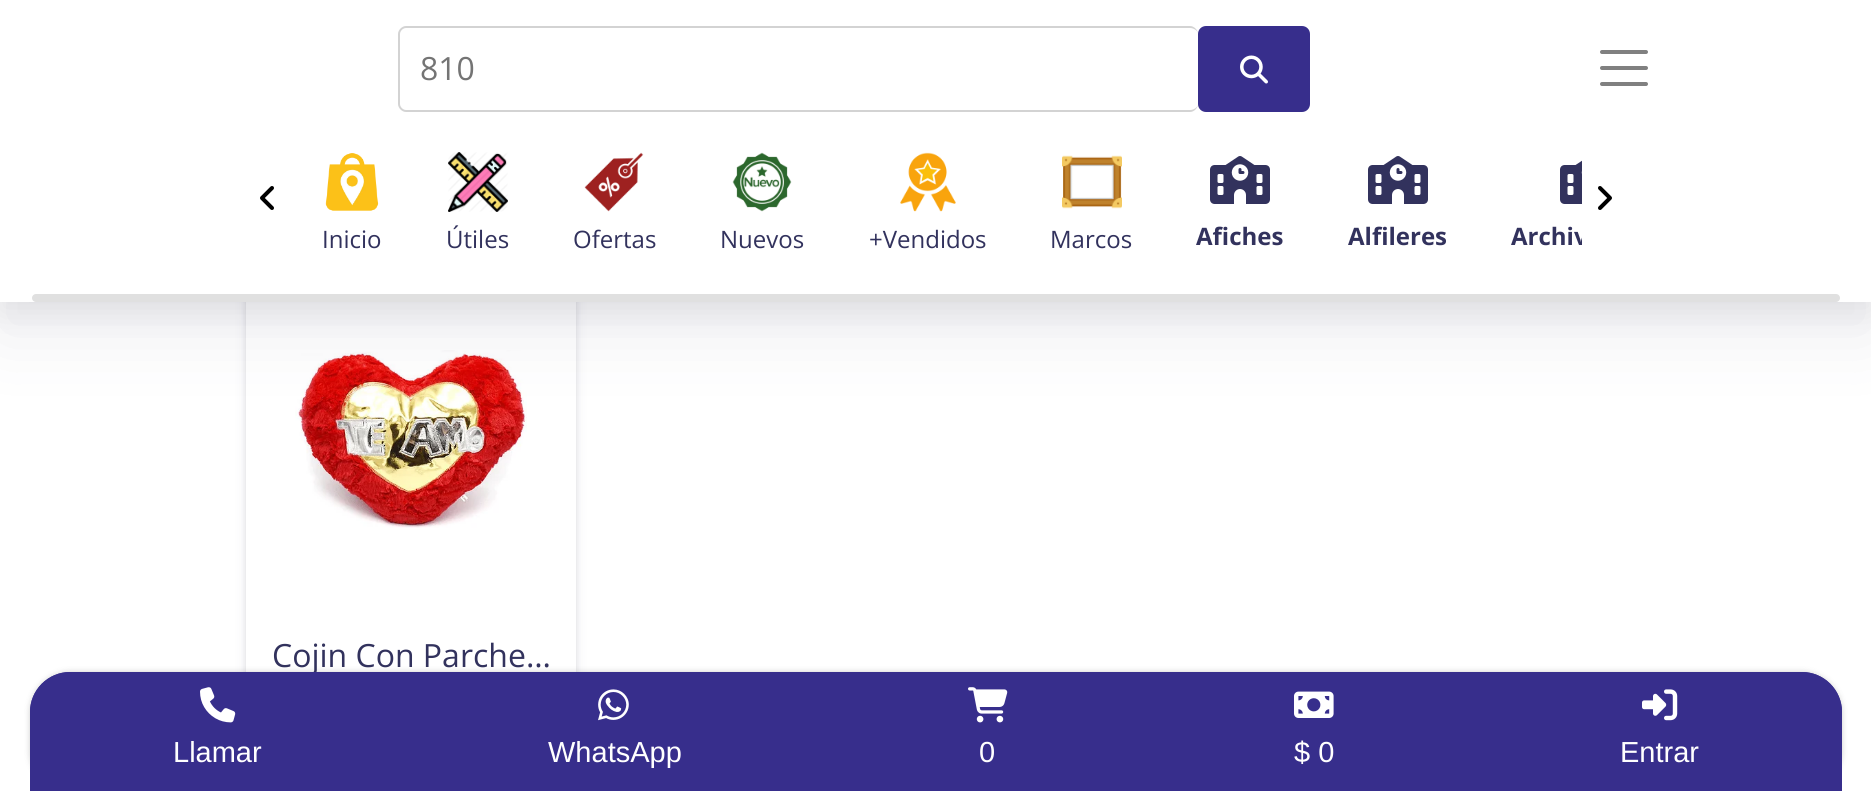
#include <cairo/cairo.h>
#include <math.h>
#include <stddef.h>


static void rounded_rect(cairo_t *cr, double x, double y, double w, double h, double r) {
  cairo_new_sub_path(cr);
  cairo_arc(cr, x + w - r, y + h - r, r, 0, M_PI / 2);
  cairo_arc(cr, x + r, y + h - r, r, M_PI / 2, M_PI);
  cairo_arc(cr, x + r, y + r, r, M_PI, 1.5 * M_PI);
  cairo_arc(cr, x + w - r, y + r, r, 1.5 * M_PI, 2 * M_PI);
  cairo_close_path(cr);
}

static void draw_shadow(cairo_t *cr, double x, double y, double w, double h, double r, double blur, double alpha) {
  cairo_push_group_with_content(cr, CAIRO_CONTENT_ALPHA);
  cairo_set_operator(cr, CAIRO_OPERATOR_SOURCE);
  for (int i = 15; i >= -15 && fmin(w, h) + blur * i / 3 > 0; i -= 2) {
    double e = blur * i / 6;
    cairo_set_source_rgba(cr, 0, 0, 0, alpha * erfc((i - 1) / 8.5) / 2);
    rounded_rect(cr, x - e, y - e, w + 2 * e, h + 2 * e, fmax(0, fmin(r + e + blur * .6, fmin(w, h) / 2 + e)));
    cairo_fill(cr);
  }
  cairo_pattern_t *soft = cairo_pop_group(cr);
  cairo_mask(cr, soft);
  cairo_pattern_destroy(soft);
}

static void draw_image(cairo_t *cr, const char *path, double x, double y, double w, double h) {
  cairo_surface_t *image = cairo_image_surface_create_from_png(path);
  cairo_save(cr);
  cairo_set_source_surface(cr, image, x, y);
  cairo_rectangle(cr, x, y, w, h);
  cairo_fill(cr);
  cairo_restore(cr);
  cairo_surface_destroy(image);
}

static void draw(cairo_t *cr) {
  cairo_set_source_rgb(cr, 1, 1, 1);
  cairo_paint(cr);
  cairo_set_source_rgb(cr, 0, 0, 0);
  draw_shadow(cr, 246, 278, 330, 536, 14, 3, 0.08);
  cairo_set_source_rgb(cr, 50 / 255.0, 50 / 255.0, 93 / 255.0);
  draw_shadow(cr, 246, 284, 330, 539, 14, 6, 0.11);
  cairo_set_source_rgb(cr, 1, 1, 1);
  cairo_rectangle(cr, 246, 302, 330, 370);
  cairo_fill(cr);
  draw_image(cr, "images/12.png", 295, 350, 232, 178);
  cairo_set_source_rgb(cr, 0, 0, 0);
  draw_shadow(cr, 0, 10, 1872, 302, 0, 15, 0.07);
  cairo_set_source_rgb(cr, 50 / 255.0, 50 / 255.0, 93 / 255.0);
  draw_shadow(cr, 0, 30, 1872, 302, 0, 35, 0.1);
  cairo_set_source_rgb(cr, 1, 1, 1);
  cairo_rectangle(cr, 0, 0, 1871, 302);
  cairo_fill(cr);
  cairo_set_source_rgb(cr, 211 / 255.0, 211 / 255.0, 211 / 255.0);
  cairo_set_fill_rule(cr, CAIRO_FILL_RULE_EVEN_ODD);
  cairo_new_path(cr);
  cairo_move_to(cr, 406, 26);
  cairo_line_to(cr, 1190, 26);
  cairo_curve_to(cr, 1194, 26, 1198, 30, 1198, 34);
  cairo_line_to(cr, 1198, 104);
  cairo_curve_to(cr, 1198, 108, 1194, 112, 1190, 112);
  cairo_line_to(cr, 406, 112);
  cairo_curve_to(cr, 402, 112, 398, 108, 398, 104);
  cairo_line_to(cr, 398, 34);
  cairo_curve_to(cr, 398, 30, 402, 26, 406, 26);
  cairo_close_path(cr);
  cairo_move_to(cr, 406, 28);
  cairo_line_to(cr, 1190, 28);
  cairo_curve_to(cr, 1194, 28, 1198, 31, 1198, 34);
  cairo_line_to(cr, 1198, 104);
  cairo_curve_to(cr, 1198, 107, 1194, 110, 1190, 110);
  cairo_line_to(cr, 406, 110);
  cairo_curve_to(cr, 403, 110, 400, 107, 400, 104);
  cairo_line_to(cr, 400, 34);
  cairo_curve_to(cr, 400, 31, 403, 28, 406, 28);
  cairo_close_path(cr);
  cairo_fill(cr);
  cairo_set_source_rgb(cr, 55 / 255.0, 46 / 255.0, 140 / 255.0);
  rounded_rect(cr, 1199, 27, 110, 84, 7);
  cairo_fill_preserve(cr);
  cairo_stroke(cr);
  draw_image(cr, "images/1.png", 1240, 55, 28, 29);
  cairo_new_path(cr);
  cairo_move_to(cr, 1602, 52);
  cairo_line_to(cr, 1646, 52);
  cairo_move_to(cr, 1602, 68);
  cairo_line_to(cr, 1646, 68);
  cairo_move_to(cr, 1602, 84);
  cairo_line_to(cr, 1646, 84);
  cairo_set_source_rgb(cr, 128 / 255.0, 128 / 255.0, 128 / 255.0);
  cairo_set_line_width(cr, 4);
  cairo_set_line_cap(cr, CAIRO_LINE_CAP_ROUND);
  cairo_stroke(cr);
  draw_image(cr, "images/2.png", 260, 186, 14, 24);
  draw_image(cr, "images/3.png", 1598, 186, 14, 24);
  draw_image(cr, "images/4.png", 325, 153, 54, 58);
  draw_image(cr, "images/5.png", 448, 152, 60, 60);
  draw_image(cr, "images/6.png", 584, 152, 60, 60);
  draw_image(cr, "images/7.png", 732, 152, 60, 60);
  draw_image(cr, "images/8.png", 900, 152, 56, 60);
  draw_image(cr, "images/9.png", 1062, 155, 60, 54);
  draw_image(cr, "images/10.png", 1210, 156, 60, 48);
  draw_image(cr, "images/10.png", 1368, 156, 60, 48);
  draw_image(cr, "images/11.png", 1560, 160, 22, 44);
  cairo_set_source_rgb(cr, 224 / 255.0, 224 / 255.0, 224 / 255.0);
  rounded_rect(cr, 32, 294, 1808, 8, 4);
  cairo_fill(cr);
  cairo_set_source_rgb(cr, 0, 0, 0);
  draw_shadow(cr, 30, 672, 1812, 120, 40, 3, 0.2);
  cairo_select_font_face(cr, "Open Sans", CAIRO_FONT_SLANT_NORMAL, CAIRO_FONT_WEIGHT_NORMAL);
  cairo_set_font_size(cr, 32);
  cairo_set_source_rgb(cr, 116 / 255.0, 116 / 255.0, 116 / 255.0);
  cairo_move_to(cr, 420, 80);
  cairo_show_text(cr, "810");
  cairo_set_font_size(cr, 24);
  cairo_set_source_rgb(cr, 50 / 255.0, 50 / 255.0, 93 / 255.0);
  cairo_move_to(cr, 322, 248);
  cairo_show_text(cr, "Inicio");
  cairo_move_to(cr, 446, 248);
  cairo_show_text(cr, "Útiles");
  cairo_move_to(cr, 573, 248);
  cairo_show_text(cr, "Ofertas");
  cairo_move_to(cr, 720, 248);
  cairo_show_text(cr, "Nuevos");
  cairo_move_to(cr, 869, 248);
  cairo_show_text(cr, "+Vendidos");
  cairo_move_to(cr, 1050, 248);
  cairo_show_text(cr, "Marcos");
  cairo_select_font_face(cr, "Open Sans", CAIRO_FONT_SLANT_NORMAL, CAIRO_FONT_WEIGHT_BOLD);
  cairo_move_to(cr, 1196, 245);
  cairo_show_text(cr, "Afiches");
  cairo_move_to(cr, 1348, 245);
  cairo_show_text(cr, "Alfileres");
  cairo_save(cr);
  cairo_set_fill_rule(cr, CAIRO_FILL_RULE_WINDING);
  cairo_rectangle(cr, 290, 120, 1292, 154);
  cairo_clip(cr);
  cairo_move_to(cr, 1511, 245);
  cairo_show_text(cr, "Archiv");
  cairo_restore(cr);
  cairo_select_font_face(cr, "Open Sans", CAIRO_FONT_SLANT_NORMAL, CAIRO_FONT_WEIGHT_NORMAL);
  cairo_set_font_size(cr, 32);
  cairo_move_to(cr, 272, 667);
  cairo_show_text(cr, "Cojin Con Parche…");
  cairo_set_source_rgb(cr, 55 / 255.0, 46 / 255.0, 140 / 255.0);
  cairo_new_path(cr);
  cairo_move_to(cr, 70, 672);
  cairo_line_to(cr, 1802, 672);
  cairo_curve_to(cr, 1824, 672, 1842, 690, 1842, 712);
  cairo_line_to(cr, 1842, 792);
  cairo_line_to(cr, 30, 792);
  cairo_line_to(cr, 30, 712);
  cairo_curve_to(cr, 30, 690, 48, 672, 70, 672);
  cairo_close_path(cr);
  cairo_fill(cr);
  cairo_new_path(cr);
  cairo_move_to(cr, 70, 672);
  cairo_line_to(cr, 404, 672);
  cairo_line_to(cr, 404, 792);
  cairo_line_to(cr, 30, 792);
  cairo_line_to(cr, 30, 712);
  cairo_curve_to(cr, 30, 690, 48, 672, 70, 672);
  cairo_close_path(cr);
  cairo_fill(cr);
  draw_image(cr, "images/13.png", 200, 687, 36, 36);
  cairo_select_font_face(cr, "Liberation Sans", CAIRO_FONT_SLANT_NORMAL, CAIRO_FONT_WEIGHT_NORMAL);
  cairo_set_font_size(cr, 29);
  cairo_set_source_rgb(cr, 1, 1, 1);
  cairo_move_to(cr, 173, 762);
  cairo_show_text(cr, "Llamar");
  draw_image(cr, "images/14.png", 598, 689, 31, 32);
  cairo_move_to(cr, 548, 762);
  cairo_show_text(cr, "WhatsApp");
  draw_image(cr, "images/15.png", 968, 687, 40, 36);
  cairo_move_to(cr, 979, 762);
  cairo_show_text(cr, "0");
  draw_image(cr, "images/16.png", 1294, 691, 40, 27);
  cairo_move_to(cr, 1294, 762);
  cairo_show_text(cr, "$ 0");
  cairo_set_source_rgb(cr, 55 / 255.0, 46 / 255.0, 140 / 255.0);
  cairo_new_path(cr);
  cairo_move_to(cr, 1476, 672);
  cairo_line_to(cr, 1802, 672);
  cairo_curve_to(cr, 1824, 672, 1842, 690, 1842, 712);
  cairo_line_to(cr, 1842, 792);
  cairo_line_to(cr, 1476, 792);
  cairo_close_path(cr);
  cairo_fill(cr);
  draw_image(cr, "images/17.png", 1642, 689, 36, 32);
  cairo_set_source_rgb(cr, 1, 1, 1);
  cairo_move_to(cr, 1620, 762);
  cairo_show_text(cr, "Entrar");
}

int main(void) {
  cairo_surface_t *surface = cairo_image_surface_create(CAIRO_FORMAT_RGB24, 1871, 791);
  cairo_t *cr = cairo_create(surface);
  cairo_font_options_t *options = cairo_font_options_create();
  cairo_font_options_set_hint_metrics(options, CAIRO_HINT_METRICS_OFF);
  cairo_font_options_set_hint_style(options, CAIRO_HINT_STYLE_NONE);
  cairo_set_font_options(cr, options);
  cairo_set_miter_limit(cr, 4);
  draw(cr);
  cairo_surface_write_to_png(surface, "out.png");
  cairo_font_options_destroy(options);
  cairo_destroy(cr);
  cairo_surface_destroy(surface);
  return 0;
}
